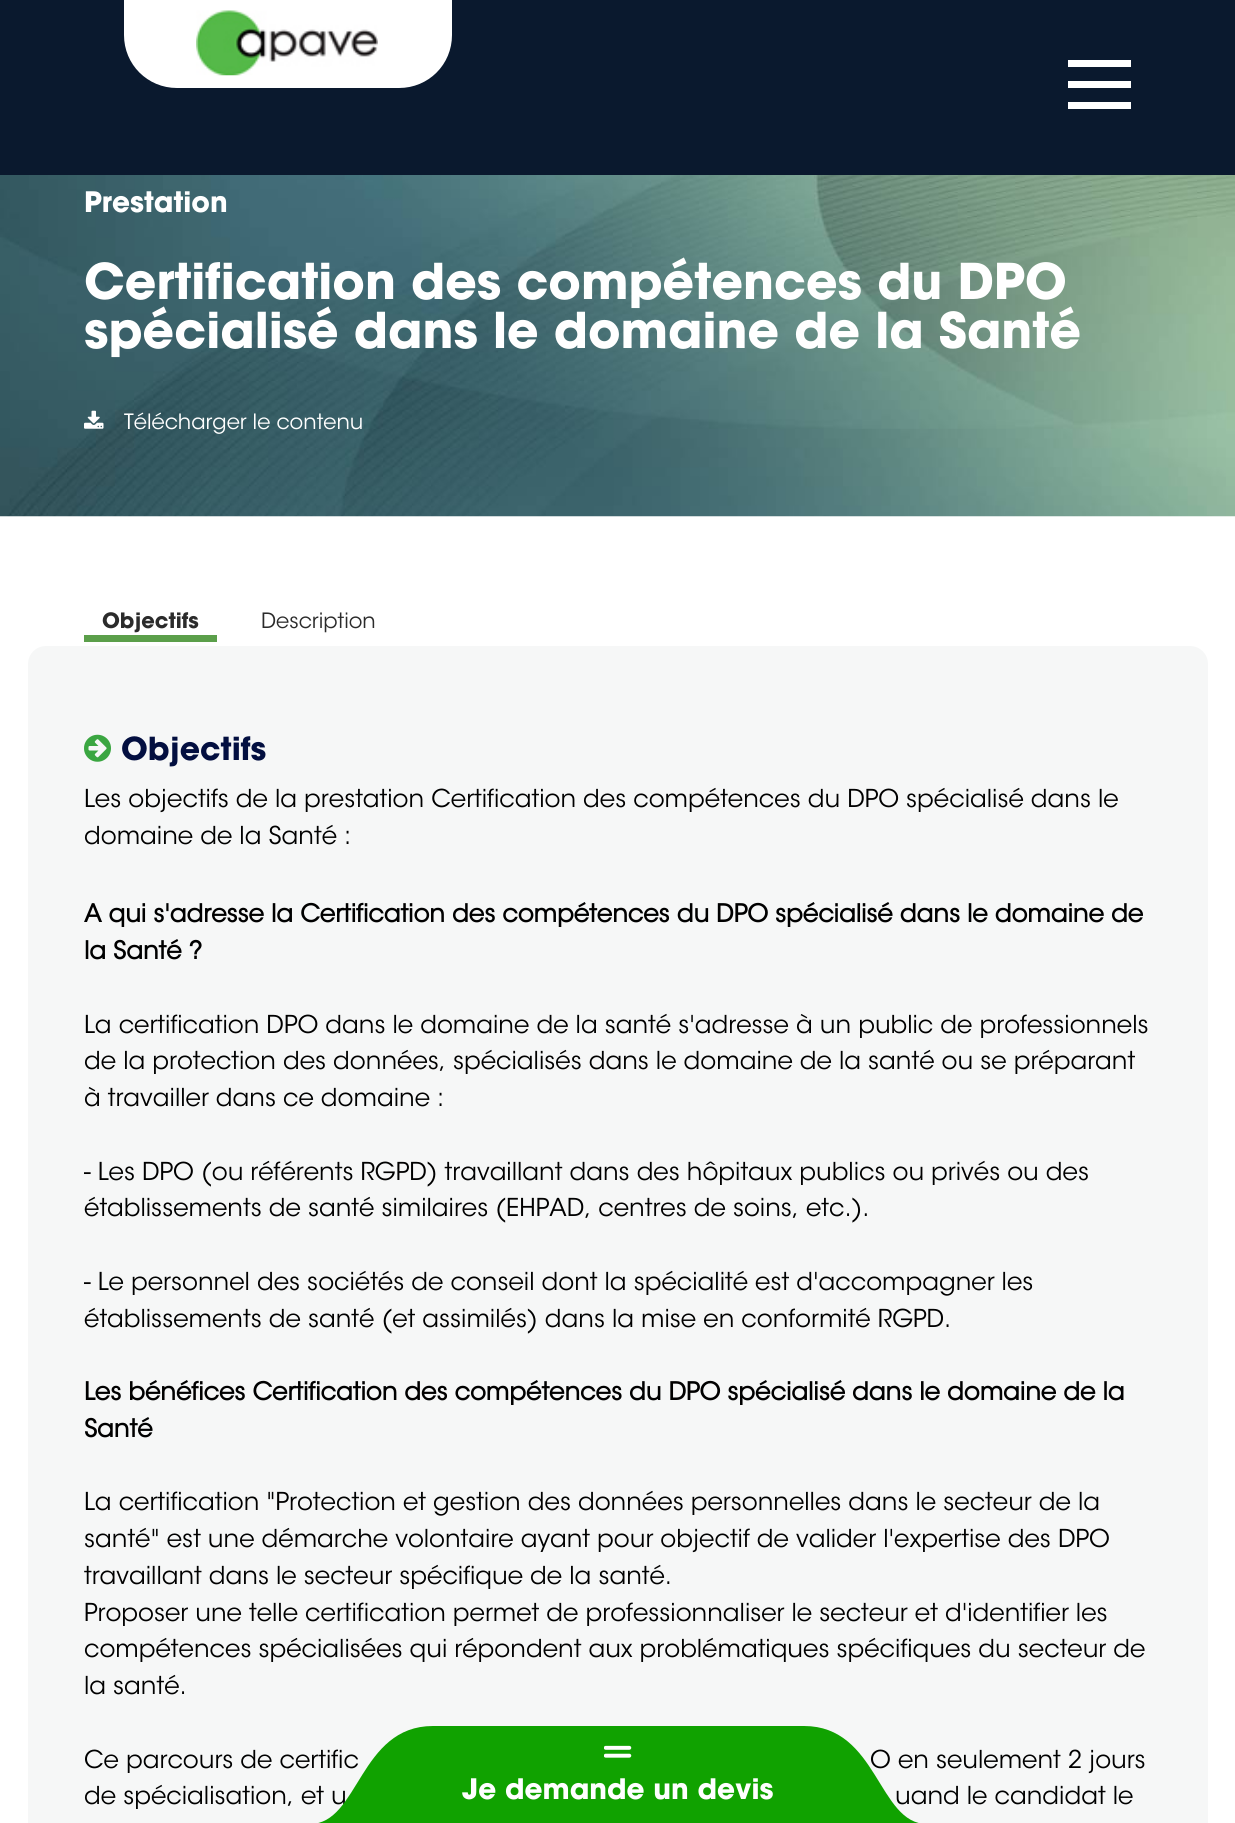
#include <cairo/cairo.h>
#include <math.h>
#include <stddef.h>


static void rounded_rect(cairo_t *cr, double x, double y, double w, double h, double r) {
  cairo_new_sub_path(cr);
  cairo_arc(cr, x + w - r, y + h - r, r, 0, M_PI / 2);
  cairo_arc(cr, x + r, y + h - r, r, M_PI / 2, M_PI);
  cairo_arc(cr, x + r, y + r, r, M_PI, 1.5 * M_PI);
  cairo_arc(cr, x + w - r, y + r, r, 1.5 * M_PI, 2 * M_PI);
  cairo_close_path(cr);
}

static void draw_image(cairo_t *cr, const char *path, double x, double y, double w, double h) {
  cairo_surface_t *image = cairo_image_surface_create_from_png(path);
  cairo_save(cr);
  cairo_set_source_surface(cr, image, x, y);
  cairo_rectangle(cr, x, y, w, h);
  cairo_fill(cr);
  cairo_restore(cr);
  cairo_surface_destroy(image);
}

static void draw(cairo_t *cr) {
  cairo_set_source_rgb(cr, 1, 1, 1);
  cairo_paint(cr);
  cairo_set_source_rgb(cr, 10 / 255.0, 25 / 255.0, 46 / 255.0);
  cairo_rectangle(cr, 0, 0, 1235, 175);
  cairo_fill(cr);
  cairo_set_source_rgb(cr, 1, 1, 1);
  cairo_new_path(cr);
  cairo_move_to(cr, 124, 0);
  cairo_line_to(cr, 452, 0);
  cairo_line_to(cr, 452, 35);
  cairo_curve_to(cr, 452, 64.5, 428.5, 88, 399, 88);
  cairo_line_to(cr, 177, 88);
  cairo_curve_to(cr, 147.5, 88, 124, 64.5, 124, 35);
  cairo_close_path(cr);
  cairo_fill(cr);
  draw_image(cr, "images/1.png", 196, 10, 182, 66);
  cairo_rectangle(cr, 1068, 60, 63, 7);
  cairo_fill(cr);
  cairo_rectangle(cr, 1068, 81, 63, 7);
  cairo_fill(cr);
  cairo_rectangle(cr, 1068, 102, 63, 7);
  cairo_fill(cr);
  draw_image(cr, "images/2.png", 0, 175, 1235, 342);
  draw_image(cr, "images/3.png", 84, 410, 20, 19);
  cairo_set_source_rgb(cr, 91 / 255.0, 159 / 255.0, 74 / 255.0);
  cairo_rectangle(cr, 84, 635, 133, 7);
  cairo_fill(cr);
  cairo_set_source_rgb(cr, 246 / 255.0, 247 / 255.0, 247 / 255.0);
  rounded_rect(cr, 28, 646, 1180, 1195, 18);
  cairo_fill(cr);
  draw_image(cr, "images/4.png", 84, 734, 27, 28);
  cairo_select_font_face(cr, "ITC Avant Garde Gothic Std", CAIRO_FONT_SLANT_NORMAL, CAIRO_FONT_WEIGHT_BOLD);
  cairo_set_font_size(cr, 28);
  cairo_set_source_rgb(cr, 1, 1, 1);
  cairo_move_to(cr, 84, 212);
  cairo_show_text(cr, "Prestation");
  cairo_set_font_size(cr, 49);
  cairo_move_to(cr, 84, 299);
  cairo_show_text(cr, "Certification des compétences du DPO");
  cairo_move_to(cr, 84, 348);
  cairo_show_text(cr, "spécialisé dans le domaine de la Santé");
  cairo_select_font_face(cr, "ITC Avant Garde Gothic Std Light", CAIRO_FONT_SLANT_NORMAL, CAIRO_FONT_WEIGHT_NORMAL);
  cairo_set_font_size(cr, 21);
  cairo_move_to(cr, 124, 429);
  cairo_show_text(cr, "Télécharger le contenu");
  cairo_select_font_face(cr, "ITC Avant Garde Gothic Std", CAIRO_FONT_SLANT_NORMAL, CAIRO_FONT_WEIGHT_BOLD);
  cairo_set_source_rgb(cr, 43 / 255.0, 43 / 255.0, 43 / 255.0);
  cairo_move_to(cr, 102, 628);
  cairo_show_text(cr, "Objectifs");
  cairo_select_font_face(cr, "ITC Avant Garde Gothic Std Light", CAIRO_FONT_SLANT_NORMAL, CAIRO_FONT_WEIGHT_NORMAL);
  cairo_move_to(cr, 261, 628);
  cairo_show_text(cr, "Description");
  cairo_select_font_face(cr, "ITC Avant Garde Gothic Std", CAIRO_FONT_SLANT_NORMAL, CAIRO_FONT_WEIGHT_BOLD);
  cairo_set_font_size(cr, 31.5);
  cairo_set_source_rgb(cr, 3 / 255.0, 15 / 255.0, 64 / 255.0);
  cairo_move_to(cr, 121, 760);
  cairo_show_text(cr, "Objectifs");
  cairo_select_font_face(cr, "ITC Avant Garde Gothic Std Light", CAIRO_FONT_SLANT_NORMAL, CAIRO_FONT_WEIGHT_NORMAL);
  cairo_set_font_size(cr, 24.5);
  cairo_set_source_rgb(cr, 0, 0, 0);
  cairo_move_to(cr, 84, 807);
  cairo_show_text(cr, "Les objectifs de la prestation Certification des compétences du DPO spécialisé dans le");
  cairo_move_to(cr, 84, 844);
  cairo_show_text(cr, "domaine de la Santé :");
  cairo_select_font_face(cr, "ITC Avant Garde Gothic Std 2", CAIRO_FONT_SLANT_NORMAL, CAIRO_FONT_WEIGHT_BOLD);
  cairo_move_to(cr, 84, 922);
  cairo_show_text(cr, "A qui s'adresse la Certification des compétences du DPO spécialisé dans le domaine de");
  cairo_move_to(cr, 84, 959);
  cairo_show_text(cr, "la Santé ?");
  cairo_select_font_face(cr, "ITC Avant Garde Gothic Std Light", CAIRO_FONT_SLANT_NORMAL, CAIRO_FONT_WEIGHT_NORMAL);
  cairo_move_to(cr, 84, 1033);
  cairo_show_text(cr, "La certification DPO dans le domaine de la santé s'adresse à un public de professionnels");
  cairo_move_to(cr, 84, 1069);
  cairo_show_text(cr, "de la protection des données, spécialisés dans le domaine de la santé ou se préparant");
  cairo_move_to(cr, 84, 1106);
  cairo_show_text(cr, "à travailler dans ce domaine :");
  cairo_move_to(cr, 84, 1180);
  cairo_show_text(cr, "- Les DPO (ou référents RGPD) travaillant dans des hôpitaux publics ou privés ou des");
  cairo_move_to(cr, 84, 1216);
  cairo_show_text(cr, "établissements de santé similaires (EHPAD, centres de soins, etc.).");
  cairo_move_to(cr, 84, 1290);
  cairo_show_text(cr, "- Le personnel des sociétés de conseil dont la spécialité est d'accompagner les");
  cairo_move_to(cr, 84, 1327);
  cairo_show_text(cr, "établissements de santé (et assimilés) dans la mise en conformité RGPD.");
  cairo_select_font_face(cr, "ITC Avant Garde Gothic Std 2", CAIRO_FONT_SLANT_NORMAL, CAIRO_FONT_WEIGHT_BOLD);
  cairo_move_to(cr, 84, 1400);
  cairo_show_text(cr, "Les bénéfices Certification des compétences du DPO spécialisé dans le domaine de la");
  cairo_move_to(cr, 84, 1437);
  cairo_show_text(cr, "Santé");
  cairo_select_font_face(cr, "ITC Avant Garde Gothic Std Light", CAIRO_FONT_SLANT_NORMAL, CAIRO_FONT_WEIGHT_NORMAL);
  cairo_move_to(cr, 84, 1510);
  cairo_show_text(cr, "La certification \"Protection et gestion des données personnelles dans le secteur de la");
  cairo_move_to(cr, 84, 1547);
  cairo_show_text(cr, "santé\" est une démarche volontaire ayant pour objectif de valider l'expertise des DPO");
  cairo_move_to(cr, 84, 1584);
  cairo_show_text(cr, "travaillant dans le secteur spécifique de la santé.");
  cairo_move_to(cr, 84, 1621);
  cairo_show_text(cr, "Proposer une telle certification permet de professionnaliser le secteur et d'identifier les");
  cairo_move_to(cr, 84, 1657);
  cairo_show_text(cr, "compétences spécialisées qui répondent aux problématiques spécifiques du secteur de");
  cairo_move_to(cr, 84, 1694);
  cairo_show_text(cr, "la santé.");
  cairo_move_to(cr, 84, 1768);
  cairo_show_text(cr, "Ce parcours de certific");
  cairo_move_to(cr, 870, 1768);
  cairo_show_text(cr, "O en seulement 2 jours");
  cairo_move_to(cr, 84, 1804);
  cairo_show_text(cr, "de spécialisation, et u");
  cairo_move_to(cr, 895, 1804);
  cairo_show_text(cr, "uand le candidat le");
  cairo_set_source_rgb(cr, 16 / 255.0, 162 / 255.0, 0);
  cairo_new_path(cr);
  cairo_move_to(cr, 433, 1726);
  cairo_curve_to(cr, 359, 1726, 359, 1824, 310, 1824);
  cairo_line_to(cr, 927, 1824);
  cairo_curve_to(cr, 878, 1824, 878, 1726, 804, 1726);
  cairo_line_to(cr, 433, 1726);
  cairo_fill(cr);
  draw_image(cr, "images/5.png", 604, 1745, 28, 13);
  cairo_select_font_face(cr, "ITC Avant Garde Gothic Std", CAIRO_FONT_SLANT_NORMAL, CAIRO_FONT_WEIGHT_BOLD);
  cairo_set_font_size(cr, 28);
  cairo_set_source_rgb(cr, 1, 1, 1);
  cairo_move_to(cr, 462, 1799);
  cairo_show_text(cr, "Je demande un devis");
}

int main(void) {
  cairo_surface_t *surface = cairo_image_surface_create(CAIRO_FORMAT_RGB24, 1235, 1823);
  cairo_t *cr = cairo_create(surface);
  cairo_font_options_t *options = cairo_font_options_create();
  cairo_font_options_set_hint_metrics(options, CAIRO_HINT_METRICS_OFF);
  cairo_font_options_set_hint_style(options, CAIRO_HINT_STYLE_NONE);
  cairo_set_font_options(cr, options);
  cairo_set_miter_limit(cr, 4);
  draw(cr);
  cairo_surface_write_to_png(surface, "out.png");
  cairo_font_options_destroy(options);
  cairo_destroy(cr);
  cairo_surface_destroy(surface);
  return 0;
}
